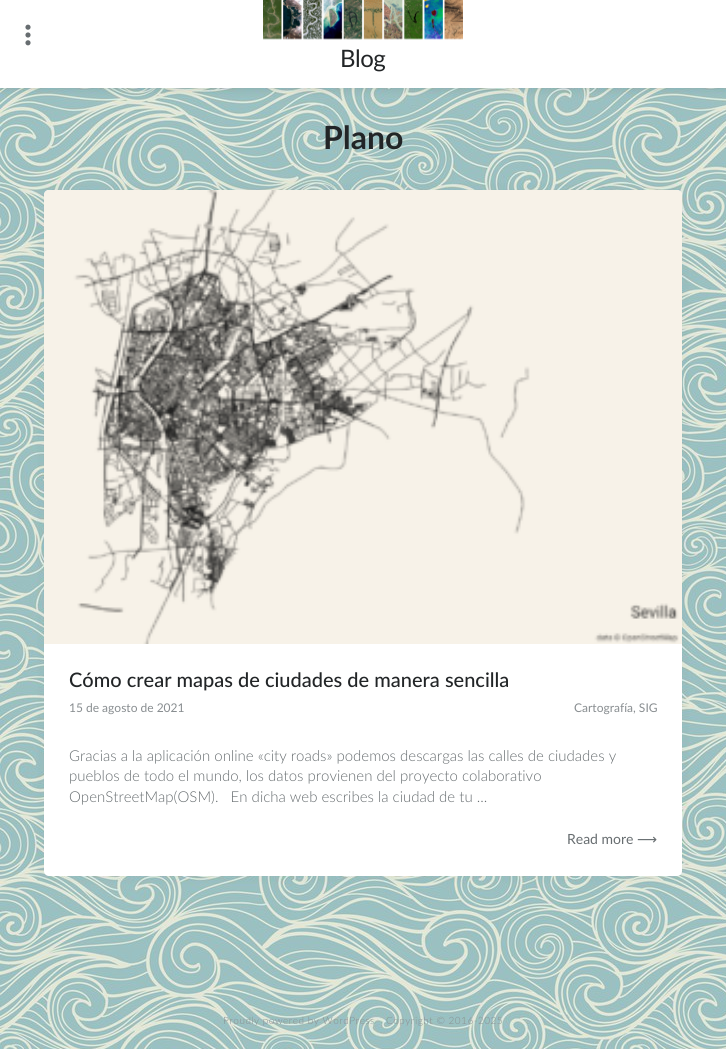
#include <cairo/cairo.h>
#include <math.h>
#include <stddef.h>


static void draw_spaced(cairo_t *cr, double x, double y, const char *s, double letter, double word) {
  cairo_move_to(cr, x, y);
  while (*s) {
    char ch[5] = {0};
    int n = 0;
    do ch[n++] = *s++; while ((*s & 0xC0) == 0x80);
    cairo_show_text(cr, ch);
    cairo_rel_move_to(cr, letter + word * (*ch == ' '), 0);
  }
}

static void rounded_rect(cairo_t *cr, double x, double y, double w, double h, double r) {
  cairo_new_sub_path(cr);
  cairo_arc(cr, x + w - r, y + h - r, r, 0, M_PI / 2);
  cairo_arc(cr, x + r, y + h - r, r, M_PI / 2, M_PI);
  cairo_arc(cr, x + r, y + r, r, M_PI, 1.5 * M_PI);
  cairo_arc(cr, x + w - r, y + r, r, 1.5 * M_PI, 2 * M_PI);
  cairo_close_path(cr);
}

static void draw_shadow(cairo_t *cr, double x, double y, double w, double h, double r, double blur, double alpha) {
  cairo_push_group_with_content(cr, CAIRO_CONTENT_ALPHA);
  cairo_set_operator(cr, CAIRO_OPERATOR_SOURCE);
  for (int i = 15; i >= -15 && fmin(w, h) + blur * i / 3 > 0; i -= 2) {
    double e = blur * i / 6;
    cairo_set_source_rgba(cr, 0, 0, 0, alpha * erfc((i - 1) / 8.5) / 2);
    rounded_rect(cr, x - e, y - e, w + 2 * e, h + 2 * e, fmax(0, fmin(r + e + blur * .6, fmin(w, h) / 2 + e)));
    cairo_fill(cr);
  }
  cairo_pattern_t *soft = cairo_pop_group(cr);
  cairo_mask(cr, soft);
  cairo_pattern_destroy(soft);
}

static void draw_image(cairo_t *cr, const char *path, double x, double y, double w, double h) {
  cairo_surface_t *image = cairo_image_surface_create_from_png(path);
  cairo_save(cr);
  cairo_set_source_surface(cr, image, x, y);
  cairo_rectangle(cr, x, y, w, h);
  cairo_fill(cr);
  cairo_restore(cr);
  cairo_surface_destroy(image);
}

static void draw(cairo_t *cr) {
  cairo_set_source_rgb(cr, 1, 1, 1);
  cairo_paint(cr);
  draw_image(cr, "images/1.png", 0, 88, 726, 961);
  cairo_set_source_rgb(cr, 34 / 255.0, 37 / 255.0, 39 / 255.0);
  draw_shadow(cr, 0, 0, 726, 88, 0, 5, 0.15);
  cairo_set_source_rgb(cr, 1, 1, 1);
  cairo_rectangle(cr, 0, 0, 726, 88);
  cairo_fill(cr);
  draw_image(cr, "images/2.png", 25, 24, 6, 22);
  draw_image(cr, "images/3.png", 263, 0, 200, 40);
  cairo_set_source_rgb(cr, 34 / 255.0, 37 / 255.0, 39 / 255.0);
  draw_shadow(cr, 44, 190, 638, 686, 5, 5, 0.05);
  cairo_set_source_rgb(cr, 1, 1, 1);
  rounded_rect(cr, 44, 190, 638, 686, 5);
  cairo_fill(cr);
  draw_image(cr, "images/4.png", 44, 190, 638, 454);
  cairo_select_font_face(cr, "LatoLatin", CAIRO_FONT_SLANT_NORMAL, CAIRO_FONT_WEIGHT_NORMAL);
  cairo_set_font_size(cr, 24);
  cairo_set_source_rgb(cr, 34 / 255.0, 37 / 255.0, 39 / 255.0);
  draw_spaced(cr, 340, 67, "Blog", -0.5, 0);
  cairo_select_font_face(cr, "LatoLatin", CAIRO_FONT_SLANT_NORMAL, CAIRO_FONT_WEIGHT_BOLD);
  cairo_set_font_size(cr, 32);
  cairo_move_to(cr, 323, 149);
  cairo_show_text(cr, "Plano");
  cairo_select_font_face(cr, "LatoLatin Medium", CAIRO_FONT_SLANT_NORMAL, CAIRO_FONT_WEIGHT_NORMAL);
  cairo_set_font_size(cr, 20);
  cairo_move_to(cr, 69, 687);
  cairo_show_text(cr, "Cómo crear mapas de ciudades de manera sencilla");
  cairo_select_font_face(cr, "LatoLatin", CAIRO_FONT_SLANT_NORMAL, CAIRO_FONT_WEIGHT_NORMAL);
  cairo_set_font_size(cr, 12);
  cairo_set_source_rgb(cr, 136 / 255.0, 141 / 255.0, 144 / 255.0);
  cairo_move_to(cr, 69, 712);
  cairo_show_text(cr, "15 de agosto de 2021");
  cairo_move_to(cr, 574, 712);
  cairo_show_text(cr, "Cartografía, SIG");
  cairo_select_font_face(cr, "LatoLatin Light", CAIRO_FONT_SLANT_NORMAL, CAIRO_FONT_WEIGHT_NORMAL);
  cairo_set_font_size(cr, 15);
  cairo_set_source_rgb(cr, 103 / 255.0, 109 / 255.0, 112 / 255.0);
  cairo_move_to(cr, 69, 761);
  cairo_show_text(cr, "Gracias a la aplicación online «city roads» podemos descargas las calles de ciudades y");
  cairo_move_to(cr, 69, 781);
  cairo_show_text(cr, "pueblos de todo el mundo, los datos provienen del proyecto colaborativo");
  cairo_move_to(cr, 69, 802);
  cairo_show_text(cr, "OpenStreetMap(OSM).   En dicha web escribes la ciudad de tu ...");
  cairo_select_font_face(cr, "LatoLatin", CAIRO_FONT_SLANT_NORMAL, CAIRO_FONT_WEIGHT_NORMAL);
  cairo_set_font_size(cr, 14);
  cairo_move_to(cr, 567, 844);
  cairo_show_text(cr, "Read more");
  cairo_select_font_face(cr, "DejaVu Sans", CAIRO_FONT_SLANT_NORMAL, CAIRO_FONT_WEIGHT_NORMAL);
  cairo_move_to(cr, 637, 844);
  cairo_show_text(cr, "⟶");
  cairo_select_font_face(cr, "LatoLatin Light", CAIRO_FONT_SLANT_NORMAL, CAIRO_FONT_WEIGHT_NORMAL);
  cairo_set_font_size(cr, 10);
  cairo_set_source_rgb(cr, 136 / 255.0, 141 / 255.0, 144 / 255.0);
  draw_spaced(cr, 223, 1024, "Proudly powered by WordPress", 0.5, 0);
  draw_spaced(cr, 386, 1024, "Copyright © 2016-2025", 0.5, 0);
}

int main(void) {
  cairo_surface_t *surface = cairo_image_surface_create(CAIRO_FORMAT_RGB24, 726, 1049);
  cairo_t *cr = cairo_create(surface);
  cairo_font_options_t *options = cairo_font_options_create();
  cairo_font_options_set_hint_metrics(options, CAIRO_HINT_METRICS_OFF);
  cairo_font_options_set_hint_style(options, CAIRO_HINT_STYLE_NONE);
  cairo_set_font_options(cr, options);
  cairo_set_miter_limit(cr, 4);
  draw(cr);
  cairo_surface_write_to_png(surface, "out.png");
  cairo_font_options_destroy(options);
  cairo_destroy(cr);
  cairo_surface_destroy(surface);
  return 0;
}
